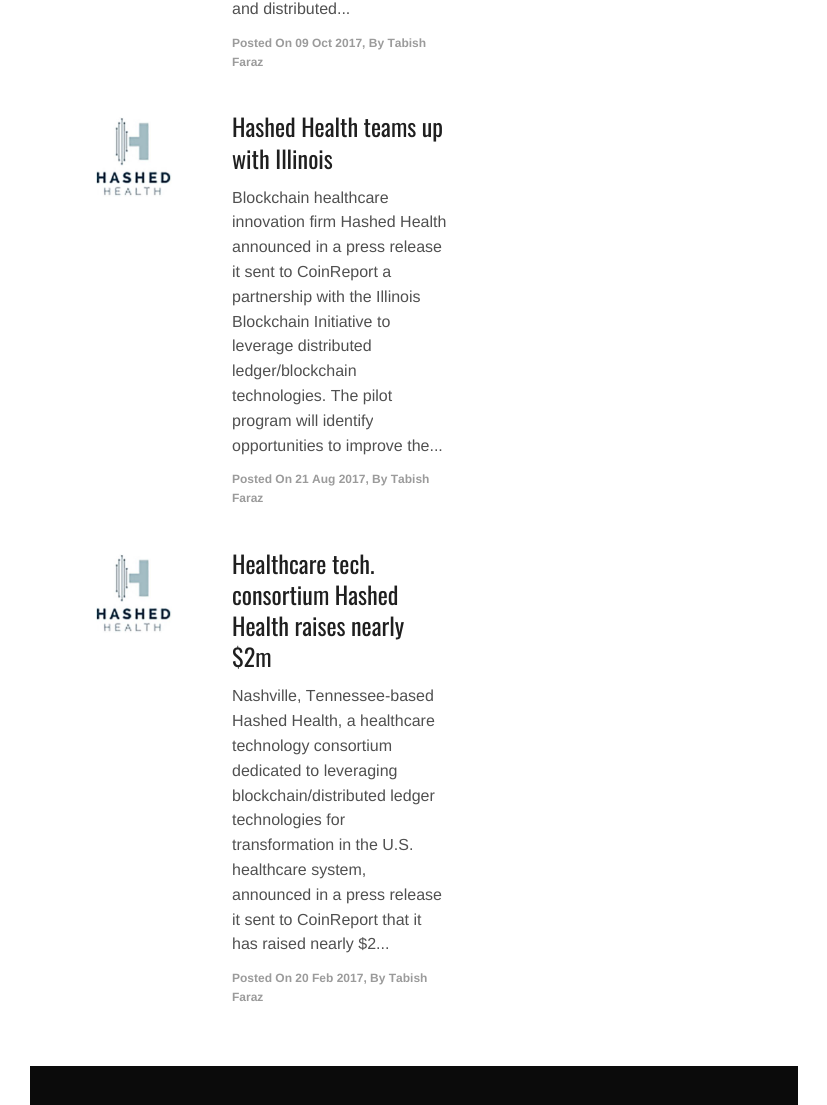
#include <cairo/cairo.h>
#include <math.h>
#include <stddef.h>


static void draw_image(cairo_t *cr, const char *path, double x, double y, double w, double h) {
  cairo_surface_t *image = cairo_image_surface_create_from_png(path);
  cairo_save(cr);
  cairo_set_source_surface(cr, image, x, y);
  cairo_rectangle(cr, x, y, w, h);
  cairo_fill(cr);
  cairo_restore(cr);
  cairo_surface_destroy(image);
}

static void draw(cairo_t *cr) {
  cairo_set_source_rgb(cr, 1, 1, 1);
  cairo_paint(cr);
  draw_image(cr, "images/1.png", 96, 117, 76, 80);
  draw_image(cr, "images/2.png", 96, 554, 76, 79);
  cairo_set_source_rgb(cr, 11 / 255.0, 11 / 255.0, 11 / 255.0);
  cairo_rectangle(cr, 30, 1066, 768, 39);
  cairo_fill(cr);
  cairo_select_font_face(cr, "Liberation Sans", CAIRO_FONT_SLANT_NORMAL, CAIRO_FONT_WEIGHT_NORMAL);
  cairo_set_font_size(cr, 16);
  cairo_set_source_rgb(cr, 80 / 255.0, 80 / 255.0, 80 / 255.0);
  cairo_move_to(cr, 232, 14);
  cairo_show_text(cr, "and distributed...");
  cairo_select_font_face(cr, "Liberation Sans", CAIRO_FONT_SLANT_NORMAL, CAIRO_FONT_WEIGHT_BOLD);
  cairo_set_font_size(cr, 12);
  cairo_set_source_rgb(cr, 155 / 255.0, 155 / 255.0, 155 / 255.0);
  cairo_move_to(cr, 232, 47);
  cairo_show_text(cr, "Posted On 09 Oct 2017, By Tabish");
  cairo_move_to(cr, 232, 66);
  cairo_show_text(cr, "Faraz");
  cairo_select_font_face(cr, "Oswald", CAIRO_FONT_SLANT_NORMAL, CAIRO_FONT_WEIGHT_NORMAL);
  cairo_set_font_size(cr, 24);
  cairo_set_source_rgb(cr, 31 / 255.0, 31 / 255.0, 31 / 255.0);
  cairo_move_to(cr, 232, 137);
  cairo_show_text(cr, "Hashed Health teams up");
  cairo_move_to(cr, 232, 169);
  cairo_show_text(cr, "with Illinois");
  cairo_select_font_face(cr, "Liberation Sans", CAIRO_FONT_SLANT_NORMAL, CAIRO_FONT_WEIGHT_NORMAL);
  cairo_set_font_size(cr, 16);
  cairo_set_source_rgb(cr, 80 / 255.0, 80 / 255.0, 80 / 255.0);
  cairo_move_to(cr, 232, 203);
  cairo_show_text(cr, "Blockchain healthcare");
  cairo_move_to(cr, 232, 227);
  cairo_show_text(cr, "innovation firm Hashed Health");
  cairo_move_to(cr, 232, 252);
  cairo_show_text(cr, "announced in a press release");
  cairo_move_to(cr, 232, 277);
  cairo_show_text(cr, "it sent to CoinReport a");
  cairo_move_to(cr, 232, 302);
  cairo_show_text(cr, "partnership with the Illinois");
  cairo_move_to(cr, 232, 327);
  cairo_show_text(cr, "Blockchain Initiative to");
  cairo_move_to(cr, 232, 351);
  cairo_show_text(cr, "leverage distributed");
  cairo_move_to(cr, 232, 376);
  cairo_show_text(cr, "ledger/blockchain");
  cairo_move_to(cr, 232, 401);
  cairo_show_text(cr, "technologies. The pilot");
  cairo_move_to(cr, 232, 426);
  cairo_show_text(cr, "program will identify");
  cairo_move_to(cr, 232, 451);
  cairo_show_text(cr, "opportunities to improve the...");
  cairo_select_font_face(cr, "Liberation Sans", CAIRO_FONT_SLANT_NORMAL, CAIRO_FONT_WEIGHT_BOLD);
  cairo_set_font_size(cr, 12);
  cairo_set_source_rgb(cr, 155 / 255.0, 155 / 255.0, 155 / 255.0);
  cairo_move_to(cr, 232, 483);
  cairo_show_text(cr, "Posted On 21 Aug 2017, By Tabish");
  cairo_move_to(cr, 232, 502);
  cairo_show_text(cr, "Faraz");
  cairo_select_font_face(cr, "Oswald", CAIRO_FONT_SLANT_NORMAL, CAIRO_FONT_WEIGHT_NORMAL);
  cairo_set_font_size(cr, 24);
  cairo_set_source_rgb(cr, 31 / 255.0, 31 / 255.0, 31 / 255.0);
  cairo_move_to(cr, 232, 574);
  cairo_show_text(cr, "Healthcare tech.");
  cairo_move_to(cr, 232, 605);
  cairo_show_text(cr, "consortium Hashed");
  cairo_move_to(cr, 232, 636);
  cairo_show_text(cr, "Health raises nearly");
  cairo_move_to(cr, 232, 667);
  cairo_show_text(cr, "$2m");
  cairo_select_font_face(cr, "Liberation Sans", CAIRO_FONT_SLANT_NORMAL, CAIRO_FONT_WEIGHT_NORMAL);
  cairo_set_font_size(cr, 16);
  cairo_set_source_rgb(cr, 80 / 255.0, 80 / 255.0, 80 / 255.0);
  cairo_move_to(cr, 232, 701);
  cairo_show_text(cr, "Nashville, Tennessee-based");
  cairo_move_to(cr, 232, 726);
  cairo_show_text(cr, "Hashed Health, a healthcare");
  cairo_move_to(cr, 232, 751);
  cairo_show_text(cr, "technology consortium");
  cairo_move_to(cr, 232, 776);
  cairo_show_text(cr, "dedicated to leveraging");
  cairo_move_to(cr, 232, 801);
  cairo_show_text(cr, "blockchain/distributed ledger");
  cairo_move_to(cr, 232, 825);
  cairo_show_text(cr, "technologies for");
  cairo_move_to(cr, 232, 850);
  cairo_show_text(cr, "transformation in the U.S.");
  cairo_move_to(cr, 232, 875);
  cairo_show_text(cr, "healthcare system,");
  cairo_move_to(cr, 232, 900);
  cairo_show_text(cr, "announced in a press release");
  cairo_move_to(cr, 232, 925);
  cairo_show_text(cr, "it sent to CoinReport that it");
  cairo_move_to(cr, 232, 949);
  cairo_show_text(cr, "has raised nearly $2...");
  cairo_select_font_face(cr, "Liberation Sans", CAIRO_FONT_SLANT_NORMAL, CAIRO_FONT_WEIGHT_BOLD);
  cairo_set_font_size(cr, 12);
  cairo_set_source_rgb(cr, 155 / 255.0, 155 / 255.0, 155 / 255.0);
  cairo_move_to(cr, 232, 982);
  cairo_show_text(cr, "Posted On 20 Feb 2017, By Tabish");
  cairo_move_to(cr, 232, 1001);
  cairo_show_text(cr, "Faraz");
}

int main(void) {
  cairo_surface_t *surface = cairo_image_surface_create(CAIRO_FORMAT_RGB24, 827, 1105);
  cairo_t *cr = cairo_create(surface);
  cairo_font_options_t *options = cairo_font_options_create();
  cairo_font_options_set_hint_metrics(options, CAIRO_HINT_METRICS_OFF);
  cairo_font_options_set_hint_style(options, CAIRO_HINT_STYLE_NONE);
  cairo_set_font_options(cr, options);
  cairo_set_miter_limit(cr, 4);
  draw(cr);
  cairo_surface_write_to_png(surface, "out.png");
  cairo_font_options_destroy(options);
  cairo_destroy(cr);
  cairo_surface_destroy(surface);
  return 0;
}
